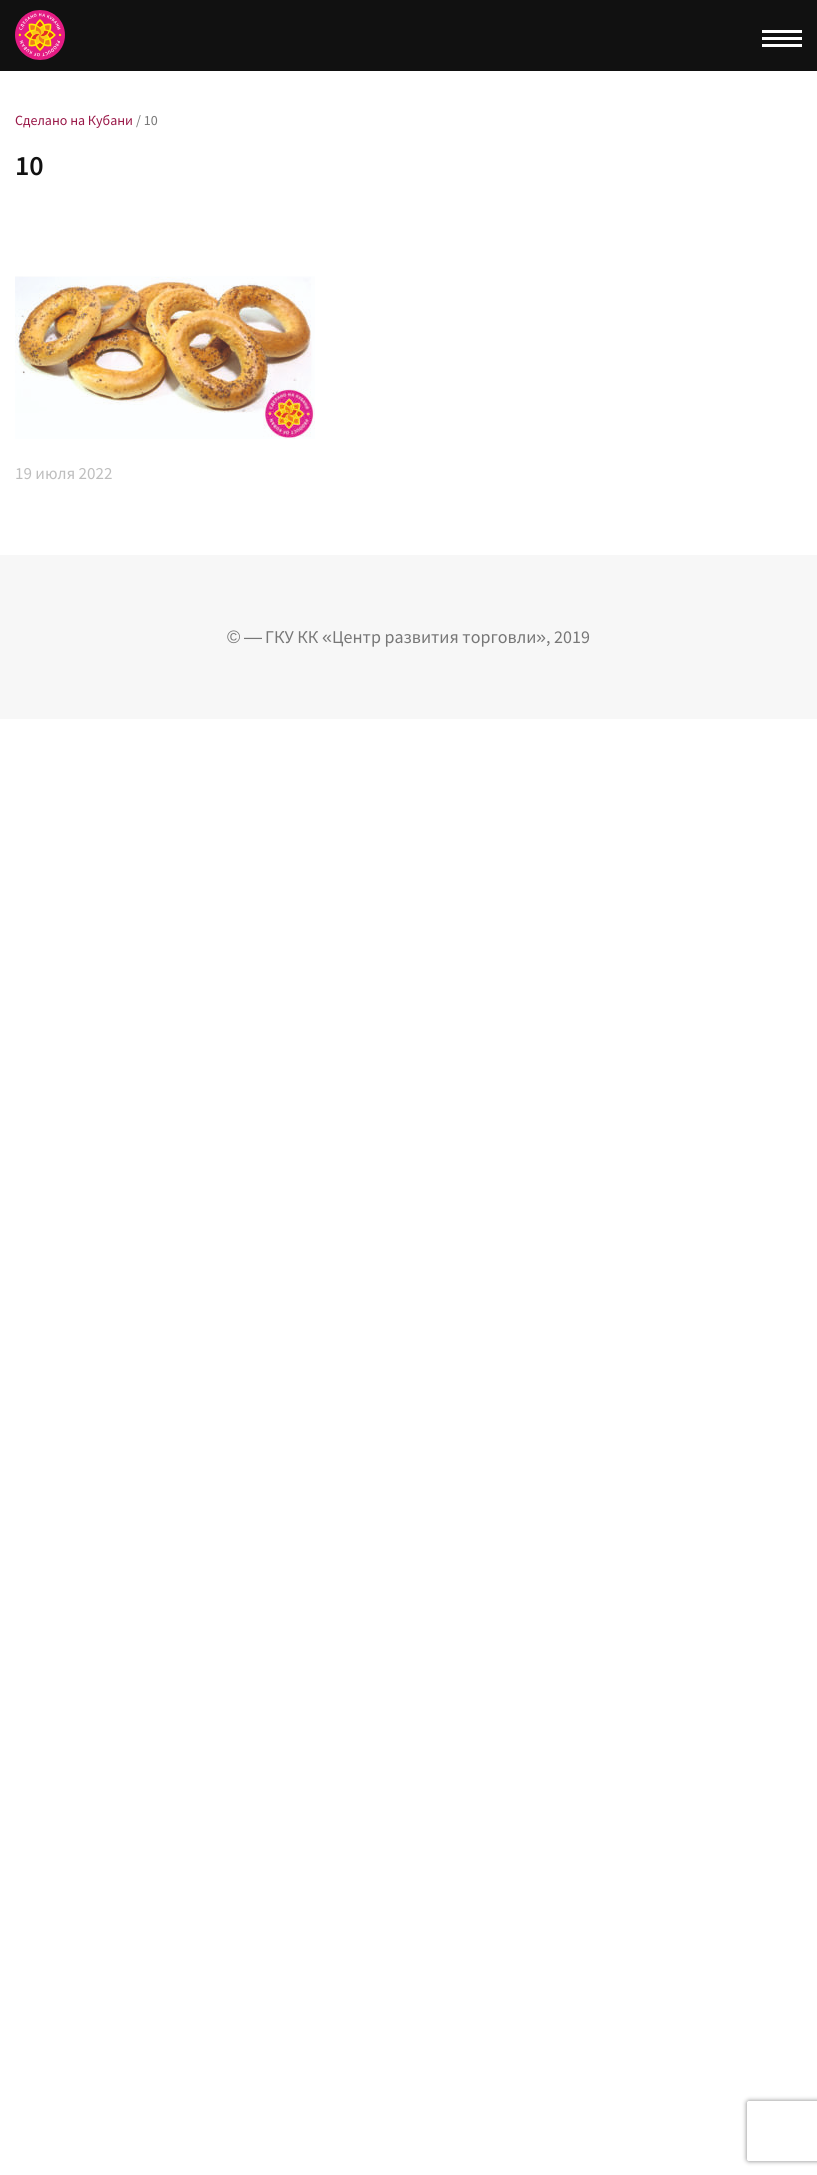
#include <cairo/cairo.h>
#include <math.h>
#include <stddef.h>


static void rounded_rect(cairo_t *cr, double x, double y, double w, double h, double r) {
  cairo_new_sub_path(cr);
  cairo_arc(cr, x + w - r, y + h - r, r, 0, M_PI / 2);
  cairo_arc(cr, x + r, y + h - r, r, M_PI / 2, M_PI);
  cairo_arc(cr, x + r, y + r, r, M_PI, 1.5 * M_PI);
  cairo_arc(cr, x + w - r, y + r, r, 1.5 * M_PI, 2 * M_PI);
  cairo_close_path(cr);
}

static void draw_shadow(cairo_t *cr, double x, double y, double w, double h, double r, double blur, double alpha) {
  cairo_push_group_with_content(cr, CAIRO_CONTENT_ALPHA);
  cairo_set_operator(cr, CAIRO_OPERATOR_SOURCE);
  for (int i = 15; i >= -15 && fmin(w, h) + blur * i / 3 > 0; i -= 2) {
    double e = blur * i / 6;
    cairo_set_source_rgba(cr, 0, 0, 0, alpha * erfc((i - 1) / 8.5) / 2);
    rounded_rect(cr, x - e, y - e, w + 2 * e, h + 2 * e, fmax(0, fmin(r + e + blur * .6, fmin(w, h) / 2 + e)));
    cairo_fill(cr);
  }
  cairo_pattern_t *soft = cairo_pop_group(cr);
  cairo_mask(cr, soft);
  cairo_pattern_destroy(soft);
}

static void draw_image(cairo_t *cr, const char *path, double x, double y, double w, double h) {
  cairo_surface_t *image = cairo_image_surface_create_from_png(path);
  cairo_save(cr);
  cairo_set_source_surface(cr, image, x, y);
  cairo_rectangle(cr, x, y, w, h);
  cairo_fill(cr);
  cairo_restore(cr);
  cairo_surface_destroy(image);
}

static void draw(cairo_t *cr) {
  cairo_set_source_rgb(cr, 1, 1, 1);
  cairo_paint(cr);
  cairo_set_source_rgb(cr, 17 / 255.0, 17 / 255.0, 17 / 255.0);
  cairo_rectangle(cr, 0, 0, 817, 71);
  cairo_fill(cr);
  draw_image(cr, "images/1.png", 15, 10, 50, 50);
  cairo_set_source_rgb(cr, 1, 1, 1);
  cairo_rectangle(cr, 762, 30, 40, 3);
  cairo_fill(cr);
  cairo_rectangle(cr, 762, 37, 40, 3);
  cairo_fill(cr);
  cairo_rectangle(cr, 762, 44, 40, 3);
  cairo_fill(cr);
  draw_image(cr, "images/2.png", 15, 276, 300, 163);
  cairo_set_source_rgb(cr, 247 / 255.0, 247 / 255.0, 247 / 255.0);
  cairo_rectangle(cr, 0, 555, 817, 164);
  cairo_fill(cr);
  cairo_save(cr);
  cairo_set_fill_rule(cr, CAIRO_FILL_RULE_EVEN_ODD);
  cairo_new_path(cr);
  cairo_move_to(cr, 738, 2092);
  cairo_line_to(cr, 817, 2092);
  cairo_line_to(cr, 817, 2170);
  cairo_line_to(cr, 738, 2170);
  cairo_close_path(cr);
  cairo_move_to(cr, 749, 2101);
  cairo_line_to(cr, 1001, 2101);
  cairo_curve_to(cr, 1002, 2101, 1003, 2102, 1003, 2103);
  cairo_line_to(cr, 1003, 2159);
  cairo_curve_to(cr, 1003, 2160, 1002, 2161, 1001, 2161);
  cairo_line_to(cr, 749, 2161);
  cairo_curve_to(cr, 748, 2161, 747, 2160, 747, 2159);
  cairo_line_to(cr, 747, 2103);
  cairo_curve_to(cr, 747, 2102, 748, 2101, 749, 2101);
  cairo_close_path(cr);
  cairo_clip(cr);
  cairo_set_source_rgb(cr, 128 / 255.0, 128 / 255.0, 128 / 255.0);
  draw_shadow(cr, 747, 2101, 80, 60, 2, 2.5, 1);
  cairo_restore(cr);
  cairo_select_font_face(cr, "Source Sans Pro", CAIRO_FONT_SLANT_NORMAL, CAIRO_FONT_WEIGHT_NORMAL);
  cairo_set_font_size(cr, 14);
  cairo_set_source_rgb(cr, 153 / 255.0, 23 / 255.0, 71 / 255.0);
  cairo_move_to(cr, 15, 125);
  cairo_show_text(cr, "Сделано на Кубани");
  cairo_set_source_rgb(cr, 119 / 255.0, 119 / 255.0, 119 / 255.0);
  cairo_move_to(cr, 136, 125);
  cairo_show_text(cr, "/ 10");
  cairo_select_font_face(cr, "Source Sans Pro SemiBold", CAIRO_FONT_SLANT_NORMAL, CAIRO_FONT_WEIGHT_NORMAL);
  cairo_set_font_size(cr, 28);
  cairo_set_source_rgb(cr, 17 / 255.0, 17 / 255.0, 17 / 255.0);
  cairo_move_to(cr, 15, 175);
  cairo_show_text(cr, "10");
  cairo_select_font_face(cr, "Source Sans Pro", CAIRO_FONT_SLANT_NORMAL, CAIRO_FONT_WEIGHT_NORMAL);
  cairo_set_font_size(cr, 17);
  cairo_set_source_rgb(cr, 190 / 255.0, 190 / 255.0, 190 / 255.0);
  cairo_move_to(cr, 15, 479);
  cairo_show_text(cr, "19 июля 2022");
  cairo_select_font_face(cr, "Liberation Sans", CAIRO_FONT_SLANT_NORMAL, CAIRO_FONT_WEIGHT_NORMAL);
  cairo_set_font_size(cr, 18);
  cairo_set_source_rgb(cr, 119 / 255.0, 119 / 255.0, 119 / 255.0);
  cairo_move_to(cr, 227, 643);
  cairo_show_text(cr, "©");
  cairo_move_to(cr, 244, 643);
  cairo_show_text(cr, "—");
  cairo_select_font_face(cr, "Source Sans Pro", CAIRO_FONT_SLANT_NORMAL, CAIRO_FONT_WEIGHT_NORMAL);
  cairo_move_to(cr, 265, 643);
  cairo_show_text(cr, "ГКУ КК");
  cairo_select_font_face(cr, "Liberation Sans", CAIRO_FONT_SLANT_NORMAL, CAIRO_FONT_WEIGHT_NORMAL);
  cairo_move_to(cr, 322, 643);
  cairo_show_text(cr, "«");
  cairo_select_font_face(cr, "Source Sans Pro", CAIRO_FONT_SLANT_NORMAL, CAIRO_FONT_WEIGHT_NORMAL);
  cairo_move_to(cr, 332, 643);
  cairo_show_text(cr, "Центр развития торговли");
  cairo_select_font_face(cr, "Liberation Sans", CAIRO_FONT_SLANT_NORMAL, CAIRO_FONT_WEIGHT_NORMAL);
  cairo_move_to(cr, 536, 643);
  cairo_show_text(cr, "»");
  cairo_select_font_face(cr, "Source Sans Pro", CAIRO_FONT_SLANT_NORMAL, CAIRO_FONT_WEIGHT_NORMAL);
  cairo_move_to(cr, 546, 643);
  cairo_show_text(cr, ", 2019");
}

int main(void) {
  cairo_surface_t *surface = cairo_image_surface_create(CAIRO_FORMAT_RGB24, 817, 2175);
  cairo_t *cr = cairo_create(surface);
  cairo_font_options_t *options = cairo_font_options_create();
  cairo_font_options_set_hint_metrics(options, CAIRO_HINT_METRICS_OFF);
  cairo_font_options_set_hint_style(options, CAIRO_HINT_STYLE_NONE);
  cairo_set_font_options(cr, options);
  cairo_set_miter_limit(cr, 4);
  draw(cr);
  cairo_surface_write_to_png(surface, "out.png");
  cairo_font_options_destroy(options);
  cairo_destroy(cr);
  cairo_surface_destroy(surface);
  return 0;
}
